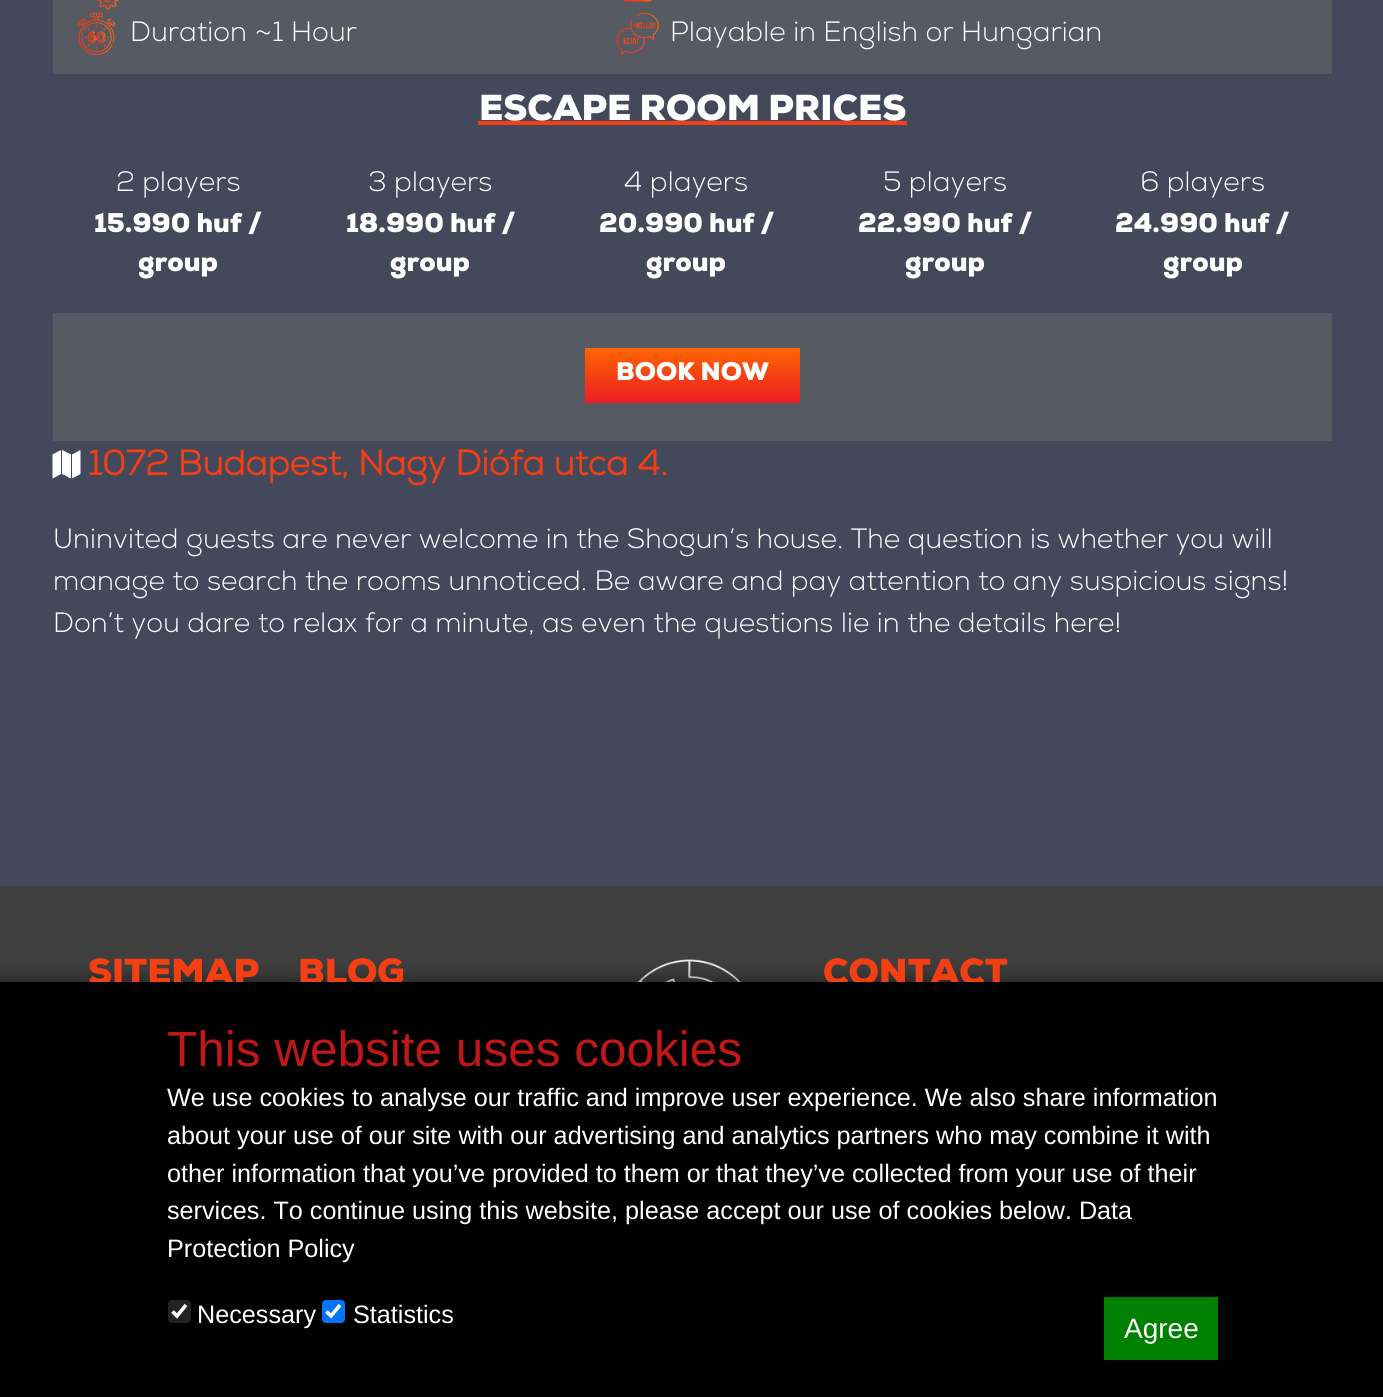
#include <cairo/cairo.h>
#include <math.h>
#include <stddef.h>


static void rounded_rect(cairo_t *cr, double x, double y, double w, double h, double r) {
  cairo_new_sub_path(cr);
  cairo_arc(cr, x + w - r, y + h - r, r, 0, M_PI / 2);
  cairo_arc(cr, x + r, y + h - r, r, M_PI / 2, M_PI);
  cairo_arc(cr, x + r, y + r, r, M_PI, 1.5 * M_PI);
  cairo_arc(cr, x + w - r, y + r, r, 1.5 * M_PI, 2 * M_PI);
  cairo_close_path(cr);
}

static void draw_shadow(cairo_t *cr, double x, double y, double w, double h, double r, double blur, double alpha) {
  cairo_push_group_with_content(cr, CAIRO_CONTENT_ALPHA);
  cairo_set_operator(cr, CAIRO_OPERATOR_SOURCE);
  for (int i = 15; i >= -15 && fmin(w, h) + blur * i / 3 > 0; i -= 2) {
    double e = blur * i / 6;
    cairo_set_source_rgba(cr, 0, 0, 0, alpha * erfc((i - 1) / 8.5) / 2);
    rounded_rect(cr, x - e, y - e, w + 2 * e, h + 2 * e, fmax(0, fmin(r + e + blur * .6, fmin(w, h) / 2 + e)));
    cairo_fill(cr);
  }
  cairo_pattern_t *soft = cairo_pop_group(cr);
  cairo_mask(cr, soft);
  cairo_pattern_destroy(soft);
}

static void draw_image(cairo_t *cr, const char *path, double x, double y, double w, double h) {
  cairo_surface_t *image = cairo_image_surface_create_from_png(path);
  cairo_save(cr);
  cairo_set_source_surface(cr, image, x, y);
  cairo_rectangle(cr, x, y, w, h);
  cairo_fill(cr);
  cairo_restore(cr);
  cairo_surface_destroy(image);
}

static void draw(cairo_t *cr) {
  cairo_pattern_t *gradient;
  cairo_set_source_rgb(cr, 63 / 255.0, 63 / 255.0, 64 / 255.0);
  cairo_paint(cr);
  cairo_set_source_rgb(cr, 67 / 255.0, 72 / 255.0, 90 / 255.0);
  cairo_rectangle(cr, 0, 0, 1383, 886);
  cairo_fill(cr);
  cairo_set_source_rgb(cr, 86 / 255.0, 90 / 255.0, 99 / 255.0);
  cairo_rectangle(cr, 53, 0, 1279, 74);
  cairo_fill(cr);
  draw_image(cr, "images/1.png", 97, 0, 22, 10);
  draw_image(cr, "images/2.png", 623, 0, 29, 2);
  draw_image(cr, "images/3.png", 77, 12, 39, 43);
  draw_image(cr, "images/4.png", 616, 12, 43, 43);
  cairo_set_source_rgb(cr, 245 / 255.0, 63 / 255.0, 18 / 255.0);
  cairo_rectangle(cr, 478, 121, 429, 4);
  cairo_fill(cr);
  cairo_set_source_rgb(cr, 86 / 255.0, 90 / 255.0, 99 / 255.0);
  cairo_rectangle(cr, 53, 313, 1279, 128);
  cairo_fill(cr);
  gradient = cairo_pattern_create_linear(692, 403, 692, 348);
  cairo_pattern_add_color_stop_rgba(gradient, 0, 237 / 255.0, 28 / 255.0, 36 / 255.0, 1);
  cairo_pattern_add_color_stop_rgba(gradient, 1, 1, 102 / 255.0, 0, 1);
  cairo_set_source(cr, gradient);
  cairo_pattern_destroy(gradient);
  cairo_rectangle(cr, 585, 348, 215, 55);
  cairo_fill(cr);
  draw_image(cr, "images/5.png", 52, 450, 29, 29);
  draw_image(cr, "images/6.png", 637, 959, 104, 23);
  cairo_set_source_rgb(cr, 0, 0, 0);
  draw_shadow(cr, -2, 980, 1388, 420, 0, 9, 0.5);
  cairo_select_font_face(cr, "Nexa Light", CAIRO_FONT_SLANT_NORMAL, CAIRO_FONT_WEIGHT_NORMAL);
  cairo_set_font_size(cr, 28);
  cairo_set_source_rgb(cr, 1, 1, 1);
  cairo_move_to(cr, 130, 41);
  cairo_show_text(cr, "Duration ~1 Hour");
  cairo_move_to(cr, 670, 41);
  cairo_show_text(cr, "Playable in English or Hungarian");
  cairo_select_font_face(cr, "Nexa Black", CAIRO_FONT_SLANT_NORMAL, CAIRO_FONT_WEIGHT_NORMAL);
  cairo_set_font_size(cr, 35);
  cairo_move_to(cr, 479, 120);
  cairo_show_text(cr, "ESCAPE ROOM PRICES");
  cairo_select_font_face(cr, "Nexa Light", CAIRO_FONT_SLANT_NORMAL, CAIRO_FONT_WEIGHT_NORMAL);
  cairo_set_font_size(cr, 28);
  cairo_move_to(cr, 116, 191);
  cairo_show_text(cr, "2 players");
  cairo_select_font_face(cr, "Nexa Black", CAIRO_FONT_SLANT_NORMAL, CAIRO_FONT_WEIGHT_NORMAL);
  cairo_set_font_size(cr, 26.25);
  cairo_move_to(cr, 94, 232);
  cairo_show_text(cr, "15.990 huf /");
  cairo_move_to(cr, 138, 271);
  cairo_show_text(cr, "group");
  cairo_select_font_face(cr, "Nexa Light", CAIRO_FONT_SLANT_NORMAL, CAIRO_FONT_WEIGHT_NORMAL);
  cairo_set_font_size(cr, 28);
  cairo_move_to(cr, 368, 191);
  cairo_show_text(cr, "3 players");
  cairo_select_font_face(cr, "Nexa Black", CAIRO_FONT_SLANT_NORMAL, CAIRO_FONT_WEIGHT_NORMAL);
  cairo_set_font_size(cr, 26.25);
  cairo_move_to(cr, 346, 232);
  cairo_show_text(cr, "18.990 huf /");
  cairo_move_to(cr, 390, 271);
  cairo_show_text(cr, "group");
  cairo_select_font_face(cr, "Nexa Light", CAIRO_FONT_SLANT_NORMAL, CAIRO_FONT_WEIGHT_NORMAL);
  cairo_set_font_size(cr, 28);
  cairo_move_to(cr, 624, 191);
  cairo_show_text(cr, "4 players");
  cairo_select_font_face(cr, "Nexa Black", CAIRO_FONT_SLANT_NORMAL, CAIRO_FONT_WEIGHT_NORMAL);
  cairo_set_font_size(cr, 26.25);
  cairo_move_to(cr, 599, 232);
  cairo_show_text(cr, "20.990 huf /");
  cairo_move_to(cr, 646, 271);
  cairo_show_text(cr, "group");
  cairo_select_font_face(cr, "Nexa Light", CAIRO_FONT_SLANT_NORMAL, CAIRO_FONT_WEIGHT_NORMAL);
  cairo_set_font_size(cr, 28);
  cairo_move_to(cr, 883, 191);
  cairo_show_text(cr, "5 players");
  cairo_select_font_face(cr, "Nexa Black", CAIRO_FONT_SLANT_NORMAL, CAIRO_FONT_WEIGHT_NORMAL);
  cairo_set_font_size(cr, 26.25);
  cairo_move_to(cr, 858, 232);
  cairo_show_text(cr, "22.990 huf /");
  cairo_move_to(cr, 905, 271);
  cairo_show_text(cr, "group");
  cairo_select_font_face(cr, "Nexa Light", CAIRO_FONT_SLANT_NORMAL, CAIRO_FONT_WEIGHT_NORMAL);
  cairo_set_font_size(cr, 28);
  cairo_move_to(cr, 1140, 191);
  cairo_show_text(cr, "6 players");
  cairo_select_font_face(cr, "Nexa Black", CAIRO_FONT_SLANT_NORMAL, CAIRO_FONT_WEIGHT_NORMAL);
  cairo_set_font_size(cr, 26.25);
  cairo_move_to(cr, 1115, 232);
  cairo_show_text(cr, "24.990 huf /");
  cairo_move_to(cr, 1163, 271);
  cairo_show_text(cr, "group");
  cairo_set_font_size(cr, 24.5);
  cairo_move_to(cr, 616, 380);
  cairo_show_text(cr, "BOOK NOW");
  cairo_select_font_face(cr, "Nexa", CAIRO_FONT_SLANT_NORMAL, CAIRO_FONT_WEIGHT_BOLD);
  cairo_set_font_size(cr, 35);
  cairo_set_source_rgb(cr, 245 / 255.0, 63 / 255.0, 18 / 255.0);
  cairo_move_to(cr, 88, 475);
  cairo_show_text(cr, "1072 Budapest, Nagy Diófa utca 4.");
  cairo_select_font_face(cr, "Nexa Light", CAIRO_FONT_SLANT_NORMAL, CAIRO_FONT_WEIGHT_NORMAL);
  cairo_set_font_size(cr, 28);
  cairo_set_source_rgb(cr, 1, 1, 1);
  cairo_move_to(cr, 53, 548);
  cairo_show_text(cr, "Uninvited guests are never welcome in the Shogun’s house. The question is whether you will");
  cairo_move_to(cr, 53, 590);
  cairo_show_text(cr, "manage to search the rooms unnoticed. Be aware and pay attention to any suspicious signs!");
  cairo_move_to(cr, 53, 632);
  cairo_show_text(cr, "Don’t you dare to relax for a minute, as even the questions lie in the details here!");
  cairo_select_font_face(cr, "Nexa Black", CAIRO_FONT_SLANT_NORMAL, CAIRO_FONT_WEIGHT_NORMAL);
  cairo_set_font_size(cr, 35);
  cairo_set_source_rgb(cr, 245 / 255.0, 63 / 255.0, 18 / 255.0);
  cairo_move_to(cr, 88, 984);
  cairo_show_text(cr, "SITEMAP");
  cairo_move_to(cr, 298, 984);
  cairo_show_text(cr, "BLOG");
  cairo_move_to(cr, 823, 984);
  cairo_show_text(cr, "CONTACT");
  cairo_set_source_rgb(cr, 0, 0, 0);
  cairo_rectangle(cr, 0, 982, 1383, 415);
  cairo_fill(cr);
  cairo_select_font_face(cr, "Liberation Sans", CAIRO_FONT_SLANT_NORMAL, CAIRO_FONT_WEIGHT_NORMAL);
  cairo_set_font_size(cr, 49.5);
  cairo_set_source_rgb(cr, 193 / 255.0, 23 / 255.0, 23 / 255.0);
  cairo_move_to(cr, 167, 1066);
  cairo_show_text(cr, "This website uses cookies");
  cairo_set_font_size(cr, 25.2);
  cairo_set_source_rgb(cr, 1, 1, 1);
  cairo_move_to(cr, 167, 1106);
  cairo_show_text(cr, "We use cookies to analyse our traffic and improve user experience. We also share information");
  cairo_move_to(cr, 167, 1144);
  cairo_show_text(cr, "about your use of our site with our advertising and analytics partners who may combine it with");
  cairo_move_to(cr, 167, 1182);
  cairo_show_text(cr, "other information that you’ve provided to them or that they’ve collected from your use of their");
  cairo_move_to(cr, 167, 1219);
  cairo_show_text(cr, "services. To continue using this website, please accept our use of cookies below. Data");
  cairo_move_to(cr, 167, 1257);
  cairo_show_text(cr, "Protection Policy");
  cairo_set_source_rgb(cr, 35 / 255.0, 35 / 255.0, 35 / 255.0);
  rounded_rect(cr, 168, 1300, 23, 23, 4);
  cairo_fill(cr);
  cairo_new_path(cr);
  cairo_move_to(cr, 172.5, 1311.5);
  cairo_line_to(cr, 177, 1316);
  cairo_line_to(cr, 186, 1305);
  cairo_set_source_rgb(cr, 1, 1, 1);
  cairo_set_line_width(cr, 3.6);
  cairo_stroke(cr);
  cairo_move_to(cr, 197, 1323);
  cairo_show_text(cr, "Necessary");
  cairo_set_source_rgb(cr, 0, 117 / 255.0, 1);
  rounded_rect(cr, 322, 1300, 23, 23, 4);
  cairo_fill(cr);
  cairo_new_path(cr);
  cairo_move_to(cr, 326.5, 1311.5);
  cairo_line_to(cr, 331, 1316);
  cairo_line_to(cr, 340, 1305);
  cairo_set_source_rgb(cr, 1, 1, 1);
  cairo_stroke(cr);
  cairo_move_to(cr, 353, 1323);
  cairo_show_text(cr, "Statistics");
  cairo_set_source_rgb(cr, 0, 128 / 255.0, 0);
  cairo_rectangle(cr, 1104, 1297, 114, 63);
  cairo_fill(cr);
  cairo_set_font_size(cr, 28);
  cairo_set_source_rgb(cr, 1, 1, 1);
  cairo_move_to(cr, 1124, 1338);
  cairo_show_text(cr, "Agree");
}

int main(void) {
  cairo_surface_t *surface = cairo_image_surface_create(CAIRO_FORMAT_RGB24, 1383, 1397);
  cairo_t *cr = cairo_create(surface);
  cairo_font_options_t *options = cairo_font_options_create();
  cairo_font_options_set_hint_metrics(options, CAIRO_HINT_METRICS_OFF);
  cairo_font_options_set_hint_style(options, CAIRO_HINT_STYLE_NONE);
  cairo_set_font_options(cr, options);
  cairo_set_miter_limit(cr, 4);
  draw(cr);
  cairo_surface_write_to_png(surface, "out.png");
  cairo_font_options_destroy(options);
  cairo_destroy(cr);
  cairo_surface_destroy(surface);
  return 0;
}
